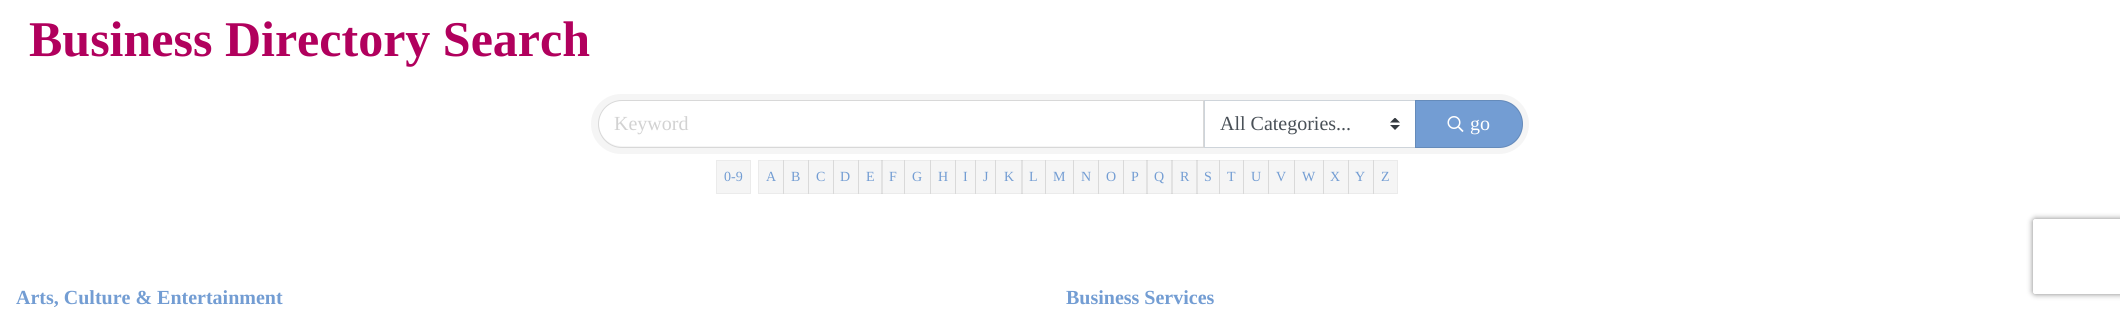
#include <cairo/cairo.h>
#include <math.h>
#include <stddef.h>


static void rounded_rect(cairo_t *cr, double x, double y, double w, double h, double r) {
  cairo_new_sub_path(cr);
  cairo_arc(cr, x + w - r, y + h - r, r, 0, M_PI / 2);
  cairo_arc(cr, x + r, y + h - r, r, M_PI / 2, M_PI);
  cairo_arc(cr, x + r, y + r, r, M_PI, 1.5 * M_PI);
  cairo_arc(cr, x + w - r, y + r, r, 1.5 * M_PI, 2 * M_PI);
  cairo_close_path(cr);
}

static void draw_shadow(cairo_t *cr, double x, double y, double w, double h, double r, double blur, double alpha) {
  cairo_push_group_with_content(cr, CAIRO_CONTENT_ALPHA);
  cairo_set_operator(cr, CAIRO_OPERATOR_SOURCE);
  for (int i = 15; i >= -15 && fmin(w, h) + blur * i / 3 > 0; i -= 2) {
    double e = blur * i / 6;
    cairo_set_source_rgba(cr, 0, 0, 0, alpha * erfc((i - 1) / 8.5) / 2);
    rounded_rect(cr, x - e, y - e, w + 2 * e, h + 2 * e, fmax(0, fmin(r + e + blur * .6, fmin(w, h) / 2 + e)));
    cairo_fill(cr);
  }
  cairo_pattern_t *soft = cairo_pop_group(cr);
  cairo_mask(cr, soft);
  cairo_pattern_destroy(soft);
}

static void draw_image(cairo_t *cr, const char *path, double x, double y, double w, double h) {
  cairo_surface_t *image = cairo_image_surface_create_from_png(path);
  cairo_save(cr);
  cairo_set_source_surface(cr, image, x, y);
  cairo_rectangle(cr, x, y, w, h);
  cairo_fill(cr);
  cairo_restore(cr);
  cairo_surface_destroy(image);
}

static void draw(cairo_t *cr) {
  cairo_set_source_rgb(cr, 1, 1, 1);
  cairo_paint(cr);
  cairo_set_source_rgb(cr, 245 / 255.0, 245 / 255.0, 245 / 255.0);
  rounded_rect(cr, 591, 94, 938, 60, 30);
  cairo_fill(cr);
  cairo_set_source_rgb(cr, 1, 1, 1);
  cairo_new_path(cr);
  cairo_move_to(cr, 621.5, 101);
  cairo_line_to(cr, 1203, 101);
  cairo_line_to(cr, 1203, 146);
  cairo_line_to(cr, 621.5, 146);
  cairo_curve_to(cr, 609, 146, 599, 136, 599, 123.5);
  cairo_curve_to(cr, 599, 111, 609, 101, 621.5, 101);
  cairo_close_path(cr);
  cairo_fill(cr);
  cairo_new_path(cr);
  cairo_move_to(cr, 622, 100.5);
  cairo_line_to(cr, 1203.5, 100.5);
  cairo_line_to(cr, 1203.5, 147.5);
  cairo_line_to(cr, 622, 147.5);
  cairo_curve_to(cr, 609, 147.5, 598.5, 137, 598.5, 124);
  cairo_curve_to(cr, 598.5, 111, 609, 100.5, 622, 100.5);
  cairo_close_path(cr);
  cairo_set_source_rgba(cr, 0, 0, 0, 0.12);
  cairo_set_line_width(cr, 1);
  cairo_stroke(cr);
  cairo_set_source_rgb(cr, 1, 1, 1);
  cairo_rectangle(cr, 1205, 101, 210, 46);
  cairo_fill(cr);
  draw_image(cr, "images/1.png", 1390, 118, 10, 12);
  cairo_rectangle(cr, 1204.5, 100.5, 211, 47);
  cairo_set_source_rgb(cr, 206 / 255.0, 212 / 255.0, 218 / 255.0);
  cairo_stroke(cr);
  cairo_set_source_rgb(cr, 115 / 255.0, 157 / 255.0, 211 / 255.0);
  cairo_new_path(cr);
  cairo_move_to(cr, 1415, 100);
  cairo_line_to(cr, 1499, 100);
  cairo_curve_to(cr, 1512.5, 100, 1523, 110.5, 1523, 124);
  cairo_curve_to(cr, 1523, 137.5, 1512.5, 148, 1499, 148);
  cairo_line_to(cr, 1415, 148);
  cairo_close_path(cr);
  cairo_fill(cr);
  cairo_new_path(cr);
  cairo_move_to(cr, 1415.5, 100.5);
  cairo_line_to(cr, 1499, 100.5);
  cairo_curve_to(cr, 1512, 100.5, 1522.5, 111, 1522.5, 124);
  cairo_curve_to(cr, 1522.5, 137, 1512, 147.5, 1499, 147.5);
  cairo_line_to(cr, 1415.5, 147.5);
  cairo_close_path(cr);
  cairo_set_source_rgba(cr, 0, 0, 0, 0.12);
  cairo_stroke(cr);
  draw_image(cr, "images/2.png", 1447, 116, 17, 16);
  cairo_set_source_rgb(cr, 245 / 255.0, 245 / 255.0, 245 / 255.0);
  cairo_rectangle(cr, 716.5, 160.5, 34, 33);
  cairo_fill_preserve(cr);
  cairo_set_source_rgb(cr, 235 / 255.0, 235 / 255.0, 235 / 255.0);
  cairo_stroke(cr);
  cairo_set_source_rgb(cr, 245 / 255.0, 245 / 255.0, 245 / 255.0);
  cairo_rectangle(cr, 758.5, 160.5, 25, 33);
  cairo_fill_preserve(cr);
  cairo_set_source_rgb(cr, 235 / 255.0, 235 / 255.0, 235 / 255.0);
  cairo_stroke(cr);
  cairo_set_source_rgba(cr, 0, 0, 0, 0.04);
  cairo_rectangle(cr, 783, 160, 26, 34);
  cairo_fill(cr);
  cairo_rectangle(cr, 783.5, 160.5, 25, 33);
  cairo_stroke(cr);
  cairo_rectangle(cr, 808, 160, 26, 34);
  cairo_fill(cr);
  cairo_rectangle(cr, 808.5, 160.5, 25, 33);
  cairo_stroke(cr);
  cairo_rectangle(cr, 833, 160, 26, 34);
  cairo_fill(cr);
  cairo_rectangle(cr, 833.5, 160.5, 25, 33);
  cairo_stroke(cr);
  cairo_rectangle(cr, 858, 160, 25, 34);
  cairo_fill(cr);
  cairo_rectangle(cr, 858.5, 160.5, 24, 33);
  cairo_stroke(cr);
  cairo_rectangle(cr, 881, 160, 24, 34);
  cairo_fill(cr);
  cairo_rectangle(cr, 881.5, 160.5, 23, 33);
  cairo_stroke(cr);
  cairo_rectangle(cr, 904, 160, 27, 34);
  cairo_fill(cr);
  cairo_rectangle(cr, 904.5, 160.5, 26, 33);
  cairo_stroke(cr);
  cairo_rectangle(cr, 930, 160, 26, 34);
  cairo_fill(cr);
  cairo_rectangle(cr, 930.5, 160.5, 25, 33);
  cairo_stroke(cr);
  cairo_rectangle(cr, 955, 160, 21, 34);
  cairo_fill(cr);
  cairo_rectangle(cr, 955.5, 160.5, 20, 33);
  cairo_stroke(cr);
  cairo_rectangle(cr, 975, 160, 21, 34);
  cairo_fill(cr);
  cairo_rectangle(cr, 975.5, 160.5, 20, 33);
  cairo_stroke(cr);
  cairo_rectangle(cr, 995, 160, 28, 34);
  cairo_fill(cr);
  cairo_rectangle(cr, 995.5, 160.5, 27, 33);
  cairo_stroke(cr);
  cairo_rectangle(cr, 1021, 160, 25, 34);
  cairo_fill(cr);
  cairo_rectangle(cr, 1021.5, 160.5, 24, 33);
  cairo_stroke(cr);
  cairo_rectangle(cr, 1045, 160, 29, 34);
  cairo_fill(cr);
  cairo_rectangle(cr, 1045.5, 160.5, 28, 33);
  cairo_stroke(cr);
  cairo_rectangle(cr, 1073, 160, 26, 34);
  cairo_fill(cr);
  cairo_rectangle(cr, 1073.5, 160.5, 25, 33);
  cairo_stroke(cr);
  cairo_rectangle(cr, 1098, 160, 26, 34);
  cairo_fill(cr);
  cairo_rectangle(cr, 1098.5, 160.5, 25, 33);
  cairo_stroke(cr);
  cairo_rectangle(cr, 1123, 160, 25, 34);
  cairo_fill(cr);
  cairo_rectangle(cr, 1123.5, 160.5, 24, 33);
  cairo_stroke(cr);
  cairo_rectangle(cr, 1146, 160, 27, 34);
  cairo_fill(cr);
  cairo_rectangle(cr, 1146.5, 160.5, 26, 33);
  cairo_stroke(cr);
  cairo_rectangle(cr, 1171, 160, 27, 34);
  cairo_fill(cr);
  cairo_rectangle(cr, 1171.5, 160.5, 26, 33);
  cairo_stroke(cr);
  cairo_rectangle(cr, 1196, 160, 24, 34);
  cairo_fill(cr);
  cairo_rectangle(cr, 1196.5, 160.5, 23, 33);
  cairo_stroke(cr);
  cairo_rectangle(cr, 1219, 160, 25, 34);
  cairo_fill(cr);
  cairo_rectangle(cr, 1219.5, 160.5, 24, 33);
  cairo_stroke(cr);
  cairo_rectangle(cr, 1243, 160, 26, 34);
  cairo_fill(cr);
  cairo_rectangle(cr, 1243.5, 160.5, 25, 33);
  cairo_stroke(cr);
  cairo_rectangle(cr, 1268, 160, 27, 34);
  cairo_fill(cr);
  cairo_rectangle(cr, 1268.5, 160.5, 26, 33);
  cairo_stroke(cr);
  cairo_rectangle(cr, 1294, 160, 30, 34);
  cairo_fill(cr);
  cairo_rectangle(cr, 1294.5, 160.5, 29, 33);
  cairo_stroke(cr);
  cairo_rectangle(cr, 1323, 160, 26, 34);
  cairo_fill(cr);
  cairo_rectangle(cr, 1323.5, 160.5, 25, 33);
  cairo_stroke(cr);
  cairo_rectangle(cr, 1348, 160, 26, 34);
  cairo_fill(cr);
  cairo_rectangle(cr, 1348.5, 160.5, 25, 33);
  cairo_stroke(cr);
  cairo_rectangle(cr, 1373, 160, 25, 34);
  cairo_fill(cr);
  cairo_rectangle(cr, 1373.5, 160.5, 24, 33);
  cairo_stroke(cr);
  cairo_save(cr);
  cairo_set_fill_rule(cr, CAIRO_FILL_RULE_EVEN_ODD);
  cairo_new_path(cr);
  cairo_move_to(cr, 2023, 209);
  cairo_line_to(cr, 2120, 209);
  cairo_line_to(cr, 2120, 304);
  cairo_line_to(cr, 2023, 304);
  cairo_close_path(cr);
  cairo_move_to(cr, 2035.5, 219);
  cairo_line_to(cr, 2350.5, 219);
  cairo_curve_to(cr, 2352, 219, 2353, 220, 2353, 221.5);
  cairo_line_to(cr, 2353, 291.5);
  cairo_curve_to(cr, 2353, 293, 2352, 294, 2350.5, 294);
  cairo_line_to(cr, 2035.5, 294);
  cairo_curve_to(cr, 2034, 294, 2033, 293, 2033, 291.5);
  cairo_line_to(cr, 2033, 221.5);
  cairo_curve_to(cr, 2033, 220, 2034, 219, 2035.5, 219);
  cairo_close_path(cr);
  cairo_clip(cr);
  cairo_set_source_rgb(cr, 128 / 255.0, 128 / 255.0, 128 / 255.0);
  draw_shadow(cr, 2033, 219, 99, 75, 2.5, 3, 1);
  cairo_restore(cr);
  cairo_select_font_face(cr, "Liberation Serif", CAIRO_FONT_SLANT_NORMAL, CAIRO_FONT_WEIGHT_BOLD);
  cairo_set_font_size(cr, 50);
  cairo_set_source_rgb(cr, 177 / 255.0, 0, 93 / 255.0);
  cairo_move_to(cr, 29, 56);
  cairo_show_text(cr, "Business Directory Search");
  cairo_select_font_face(cr, "Liberation Serif", CAIRO_FONT_SLANT_NORMAL, CAIRO_FONT_WEIGHT_NORMAL);
  cairo_set_font_size(cr, 20);
  cairo_set_source_rgb(cr, 210 / 255.0, 210 / 255.0, 210 / 255.0);
  cairo_move_to(cr, 614, 130);
  cairo_show_text(cr, "Keyword");
  cairo_set_source_rgb(cr, 73 / 255.0, 80 / 255.0, 87 / 255.0);
  cairo_move_to(cr, 1220, 130);
  cairo_show_text(cr, "All Categories...");
  cairo_set_source_rgb(cr, 1, 1, 1);
  cairo_move_to(cr, 1470, 130);
  cairo_show_text(cr, "go");
  cairo_set_font_size(cr, 14);
  cairo_set_source_rgb(cr, 115 / 255.0, 157 / 255.0, 211 / 255.0);
  cairo_move_to(cr, 724, 181);
  cairo_show_text(cr, "0-9");
  cairo_move_to(cr, 766, 181);
  cairo_show_text(cr, "A");
  cairo_move_to(cr, 791, 181);
  cairo_show_text(cr, "B");
  cairo_move_to(cr, 816, 181);
  cairo_show_text(cr, "C");
  cairo_move_to(cr, 840, 181);
  cairo_show_text(cr, "D");
  cairo_move_to(cr, 866, 181);
  cairo_show_text(cr, "E");
  cairo_move_to(cr, 889, 181);
  cairo_show_text(cr, "F");
  cairo_move_to(cr, 912, 181);
  cairo_show_text(cr, "G");
  cairo_move_to(cr, 938, 181);
  cairo_show_text(cr, "H");
  cairo_move_to(cr, 963, 181);
  cairo_show_text(cr, "I");
  cairo_move_to(cr, 983, 181);
  cairo_show_text(cr, "J");
  cairo_move_to(cr, 1004, 181);
  cairo_show_text(cr, "K");
  cairo_move_to(cr, 1029, 181);
  cairo_show_text(cr, "L");
  cairo_move_to(cr, 1053, 181);
  cairo_show_text(cr, "M");
  cairo_move_to(cr, 1081, 181);
  cairo_show_text(cr, "N");
  cairo_move_to(cr, 1106, 181);
  cairo_show_text(cr, "O");
  cairo_move_to(cr, 1131, 181);
  cairo_show_text(cr, "P");
  cairo_move_to(cr, 1154, 181);
  cairo_show_text(cr, "Q");
  cairo_move_to(cr, 1180, 181);
  cairo_show_text(cr, "R");
  cairo_move_to(cr, 1204, 181);
  cairo_show_text(cr, "S");
  cairo_move_to(cr, 1227, 181);
  cairo_show_text(cr, "T");
  cairo_move_to(cr, 1251, 181);
  cairo_show_text(cr, "U");
  cairo_move_to(cr, 1276, 181);
  cairo_show_text(cr, "V");
  cairo_move_to(cr, 1302, 181);
  cairo_show_text(cr, "W");
  cairo_move_to(cr, 1330, 181);
  cairo_show_text(cr, "X");
  cairo_move_to(cr, 1355, 181);
  cairo_show_text(cr, "Y");
  cairo_move_to(cr, 1381, 181);
  cairo_show_text(cr, "Z");
  cairo_select_font_face(cr, "Liberation Serif", CAIRO_FONT_SLANT_NORMAL, CAIRO_FONT_WEIGHT_BOLD);
  cairo_set_font_size(cr, 20);
  cairo_move_to(cr, 16, 304);
  cairo_show_text(cr, "Arts, Culture & Entertainment");
  cairo_move_to(cr, 1066, 304);
  cairo_show_text(cr, "Business Services");
}

int main(void) {
  cairo_surface_t *surface = cairo_image_surface_create(CAIRO_FORMAT_RGB24, 2120, 311);
  cairo_t *cr = cairo_create(surface);
  cairo_font_options_t *options = cairo_font_options_create();
  cairo_font_options_set_hint_metrics(options, CAIRO_HINT_METRICS_OFF);
  cairo_font_options_set_hint_style(options, CAIRO_HINT_STYLE_NONE);
  cairo_set_font_options(cr, options);
  cairo_set_miter_limit(cr, 4);
  draw(cr);
  cairo_surface_write_to_png(surface, "out.png");
  cairo_font_options_destroy(options);
  cairo_destroy(cr);
  cairo_surface_destroy(surface);
  return 0;
}
